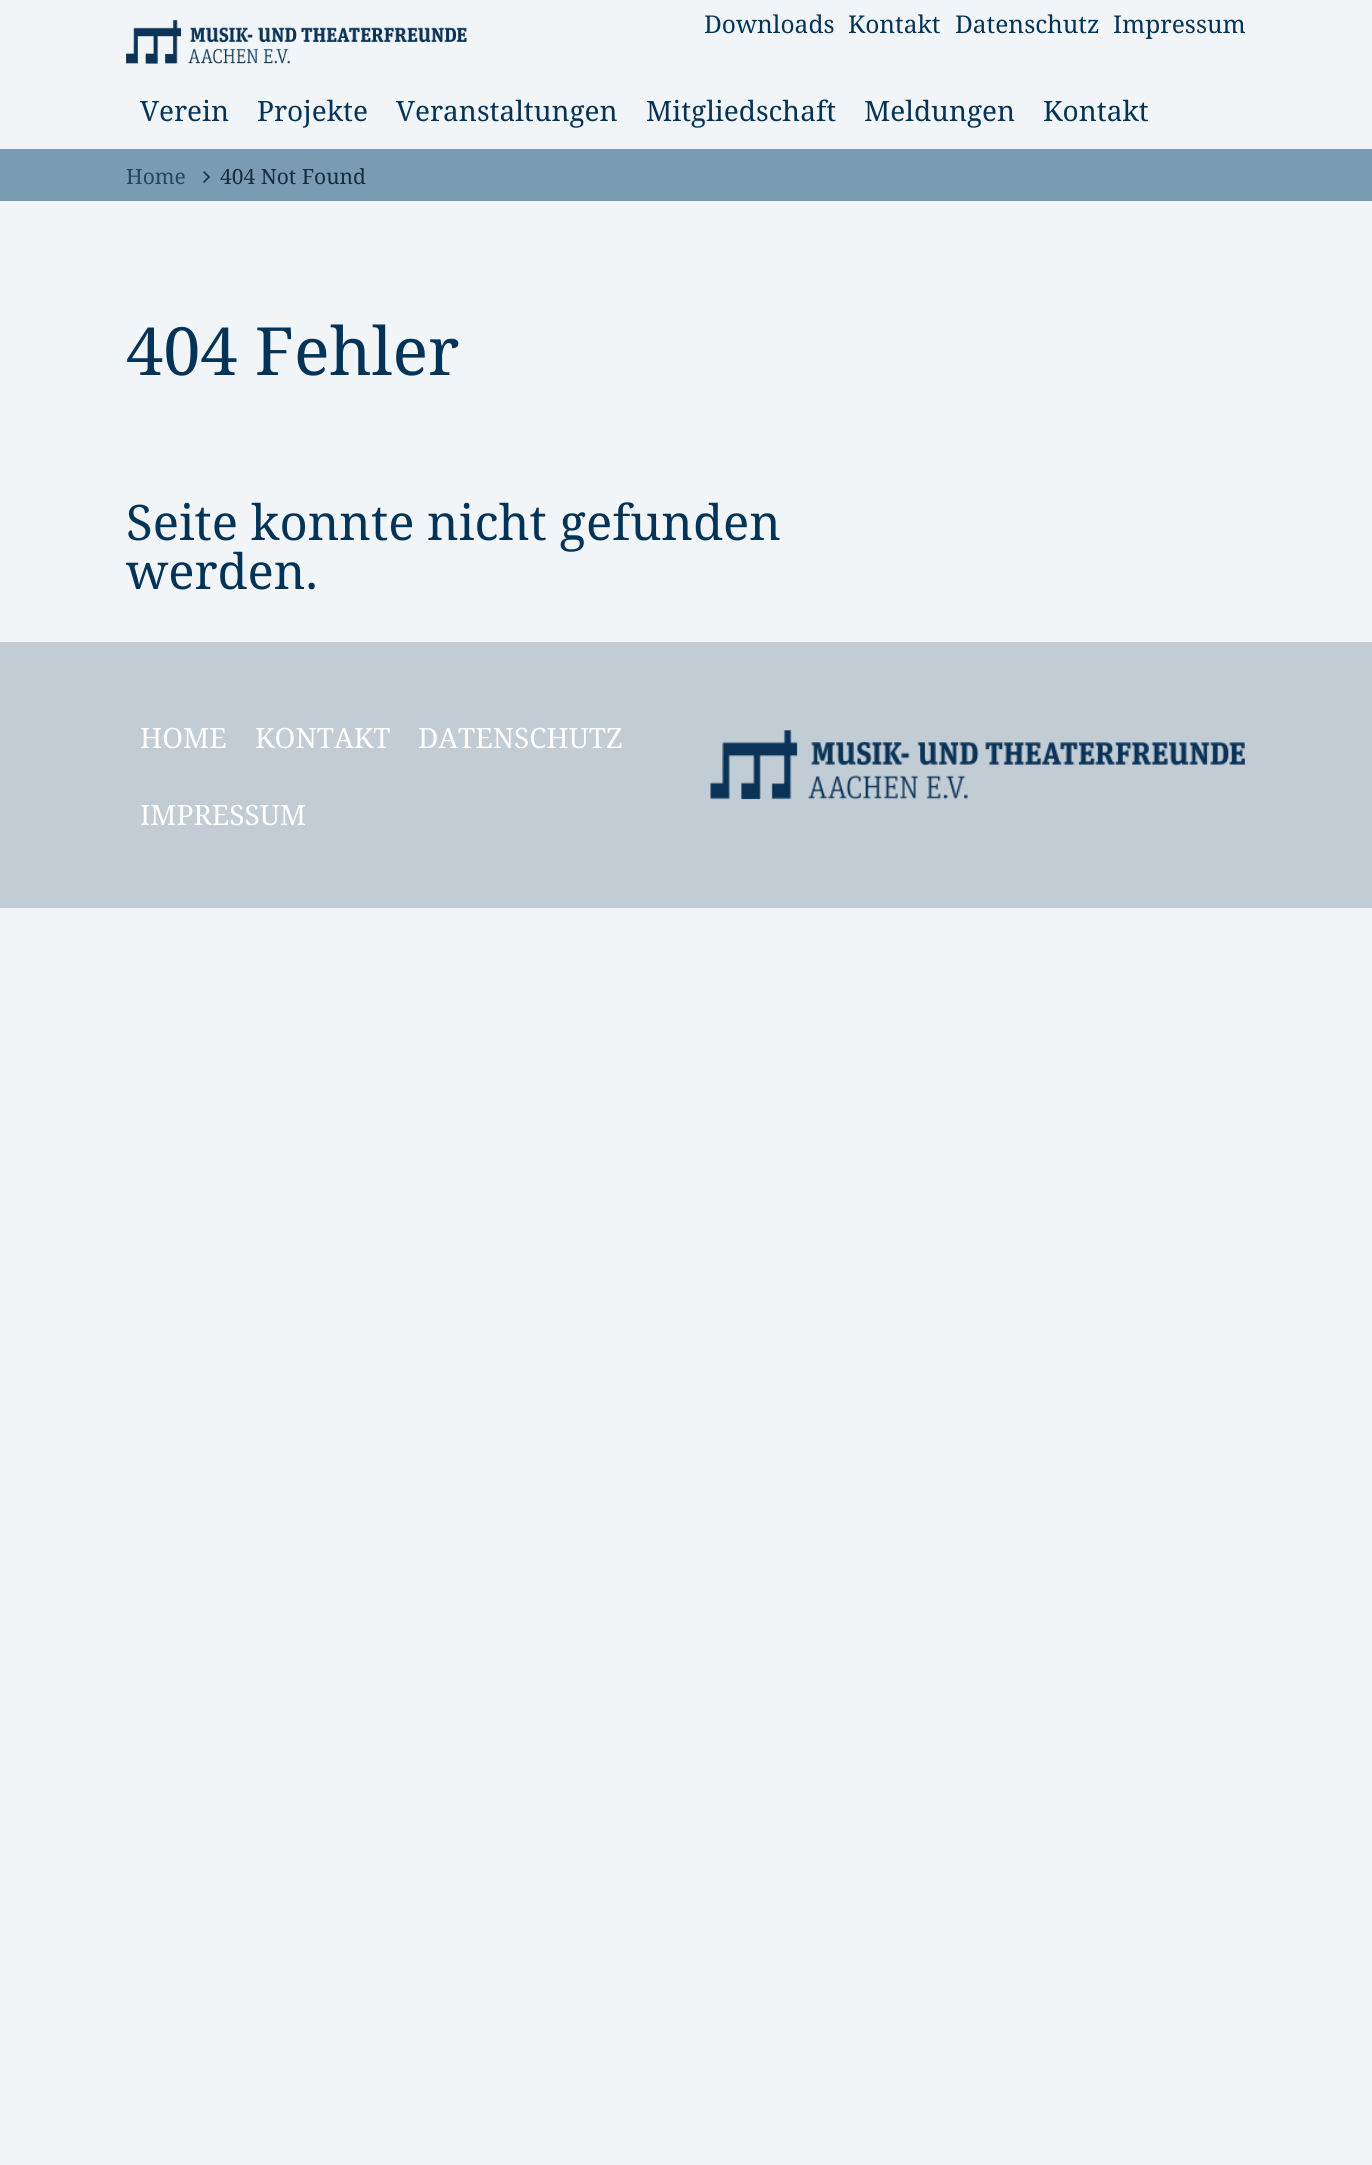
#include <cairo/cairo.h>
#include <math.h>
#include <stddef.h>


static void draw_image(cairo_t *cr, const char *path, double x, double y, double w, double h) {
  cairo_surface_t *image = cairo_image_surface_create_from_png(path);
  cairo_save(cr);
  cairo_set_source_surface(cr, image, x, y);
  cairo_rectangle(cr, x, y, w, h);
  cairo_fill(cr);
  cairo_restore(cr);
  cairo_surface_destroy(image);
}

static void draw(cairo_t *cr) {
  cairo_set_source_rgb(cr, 242 / 255.0, 245 / 255.0, 247 / 255.0);
  cairo_paint(cr);
  draw_image(cr, "images/1.png", 126, 20, 341, 44);
  cairo_set_source_rgb(cr, 121 / 255.0, 155 / 255.0, 180 / 255.0);
  cairo_rectangle(cr, 0, 149, 1372, 52);
  cairo_fill(cr);
  draw_image(cr, "images/2.png", 203, 171, 7, 12);
  cairo_set_source_rgb(cr, 193 / 255.0, 204 / 255.0, 212 / 255.0);
  cairo_rectangle(cr, 0, 642, 1372, 266);
  cairo_fill(cr);
  draw_image(cr, "images/3.png", 710, 730, 535, 70);
  cairo_select_font_face(cr, "Noto Serif", CAIRO_FONT_SLANT_NORMAL, CAIRO_FONT_WEIGHT_NORMAL);
  cairo_set_font_size(cr, 24.5);
  cairo_set_source_rgb(cr, 3 / 255.0, 52 / 255.0, 88 / 255.0);
  cairo_move_to(cr, 704, 33);
  cairo_show_text(cr, "Downloads");
  cairo_move_to(cr, 848, 33);
  cairo_show_text(cr, "Kontakt");
  cairo_move_to(cr, 955, 33);
  cairo_show_text(cr, "Datenschutz");
  cairo_move_to(cr, 1113, 33);
  cairo_show_text(cr, "Impressum");
  cairo_set_font_size(cr, 28);
  cairo_move_to(cr, 140, 121);
  cairo_show_text(cr, "Verein");
  cairo_move_to(cr, 257, 121);
  cairo_show_text(cr, "Projekte");
  cairo_move_to(cr, 396, 121);
  cairo_show_text(cr, "Veranstaltungen");
  cairo_move_to(cr, 646, 121);
  cairo_show_text(cr, "Mitgliedschaft");
  cairo_move_to(cr, 864, 121);
  cairo_show_text(cr, "Meldungen");
  cairo_move_to(cr, 1043, 121);
  cairo_show_text(cr, "Kontakt");
  cairo_set_font_size(cr, 21);
  cairo_set_source_rgb(cr, 35 / 255.0, 71 / 255.0, 97 / 255.0);
  cairo_move_to(cr, 126, 184);
  cairo_show_text(cr, "Home");
  cairo_set_source_rgb(cr, 22 / 255.0, 44 / 255.0, 60 / 255.0);
  cairo_move_to(cr, 220, 184);
  cairo_show_text(cr, "404 Not Found");
  cairo_set_font_size(cr, 66.5);
  cairo_set_source_rgb(cr, 3 / 255.0, 52 / 255.0, 88 / 255.0);
  cairo_move_to(cr, 126, 375);
  cairo_show_text(cr, "404 Fehler");
  cairo_set_font_size(cr, 49);
  cairo_move_to(cr, 126, 540);
  cairo_show_text(cr, "Seite konnte nicht gefunden");
  cairo_move_to(cr, 126, 589);
  cairo_show_text(cr, "werden.");
  cairo_set_font_size(cr, 28);
  cairo_set_source_rgb(cr, 1, 1, 1);
  cairo_move_to(cr, 140, 748);
  cairo_show_text(cr, "HOME");
  cairo_move_to(cr, 255, 748);
  cairo_show_text(cr, "KONTAKT");
  cairo_move_to(cr, 418, 748);
  cairo_show_text(cr, "DATENSCHUTZ");
  cairo_move_to(cr, 140, 825);
  cairo_show_text(cr, "IMPRESSUM");
}

int main(void) {
  cairo_surface_t *surface = cairo_image_surface_create(CAIRO_FORMAT_RGB24, 1372, 2165);
  cairo_t *cr = cairo_create(surface);
  cairo_font_options_t *options = cairo_font_options_create();
  cairo_font_options_set_hint_metrics(options, CAIRO_HINT_METRICS_OFF);
  cairo_font_options_set_hint_style(options, CAIRO_HINT_STYLE_NONE);
  cairo_set_font_options(cr, options);
  cairo_set_miter_limit(cr, 4);
  draw(cr);
  cairo_surface_write_to_png(surface, "out.png");
  cairo_font_options_destroy(options);
  cairo_destroy(cr);
  cairo_surface_destroy(surface);
  return 0;
}
